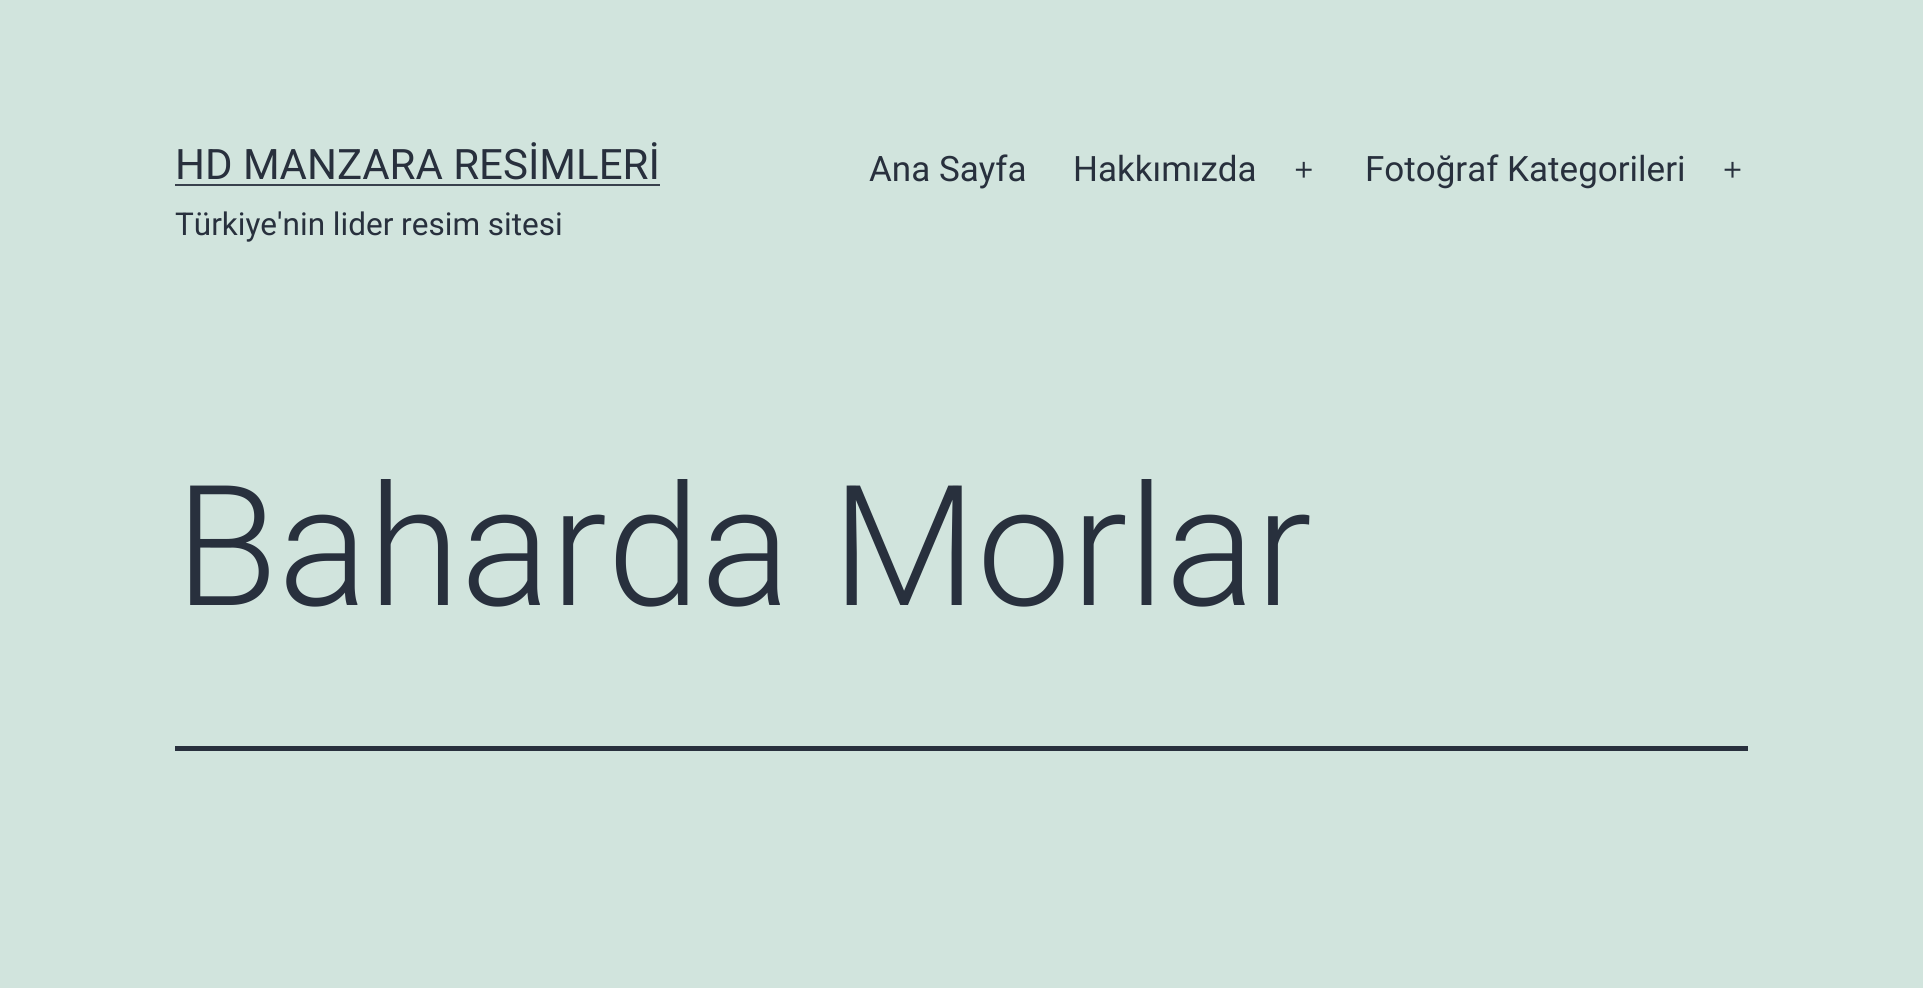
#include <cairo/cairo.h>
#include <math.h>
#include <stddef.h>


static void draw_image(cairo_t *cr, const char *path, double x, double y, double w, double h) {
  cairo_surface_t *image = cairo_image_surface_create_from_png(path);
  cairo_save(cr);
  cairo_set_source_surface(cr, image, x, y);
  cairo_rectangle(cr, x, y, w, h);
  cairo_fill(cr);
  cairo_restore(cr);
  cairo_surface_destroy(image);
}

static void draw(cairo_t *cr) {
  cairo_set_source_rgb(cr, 209 / 255.0, 228 / 255.0, 221 / 255.0);
  cairo_paint(cr);
  cairo_set_source_rgb(cr, 57 / 255.0, 65 / 255.0, 77 / 255.0);
  cairo_rectangle(cr, 175, 184, 485, 2);
  cairo_fill(cr);
  draw_image(cr, "images/1.png", 1295, 161, 17, 17);
  draw_image(cr, "images/2.png", 1724, 161, 17, 17);
  cairo_set_source_rgb(cr, 40 / 255.0, 48 / 255.0, 61 / 255.0);
  cairo_rectangle(cr, 175, 746, 1573, 5);
  cairo_fill(cr);
  cairo_select_font_face(cr, "Roboto", CAIRO_FONT_SLANT_NORMAL, CAIRO_FONT_WEIGHT_NORMAL);
  cairo_set_font_size(cr, 42);
  cairo_move_to(cr, 175, 179);
  cairo_show_text(cr, "HD MANZARA RESİMLERİ");
  cairo_set_font_size(cr, 31.5);
  cairo_move_to(cr, 175, 235);
  cairo_show_text(cr, "Türkiye'nin lider resim sitesi");
  cairo_set_font_size(cr, 35);
  cairo_move_to(cr, 869, 181);
  cairo_show_text(cr, "Ana Sayfa");
  cairo_move_to(cr, 1073, 181);
  cairo_show_text(cr, "Hakkımızda");
  cairo_move_to(cr, 1365, 181);
  cairo_show_text(cr, "Fotoğraf Kategorileri");
  cairo_select_font_face(cr, "Roboto Light", CAIRO_FONT_SLANT_NORMAL, CAIRO_FONT_WEIGHT_NORMAL);
  cairo_set_font_size(cr, 168);
  cairo_move_to(cr, 175, 605);
  cairo_show_text(cr, "Baharda Morlar");
}

int main(void) {
  cairo_surface_t *surface = cairo_image_surface_create(CAIRO_FORMAT_RGB24, 1923, 988);
  cairo_t *cr = cairo_create(surface);
  cairo_font_options_t *options = cairo_font_options_create();
  cairo_font_options_set_hint_metrics(options, CAIRO_HINT_METRICS_OFF);
  cairo_font_options_set_hint_style(options, CAIRO_HINT_STYLE_NONE);
  cairo_set_font_options(cr, options);
  cairo_set_miter_limit(cr, 4);
  draw(cr);
  cairo_surface_write_to_png(surface, "out.png");
  cairo_font_options_destroy(options);
  cairo_destroy(cr);
  cairo_surface_destroy(surface);
  return 0;
}
